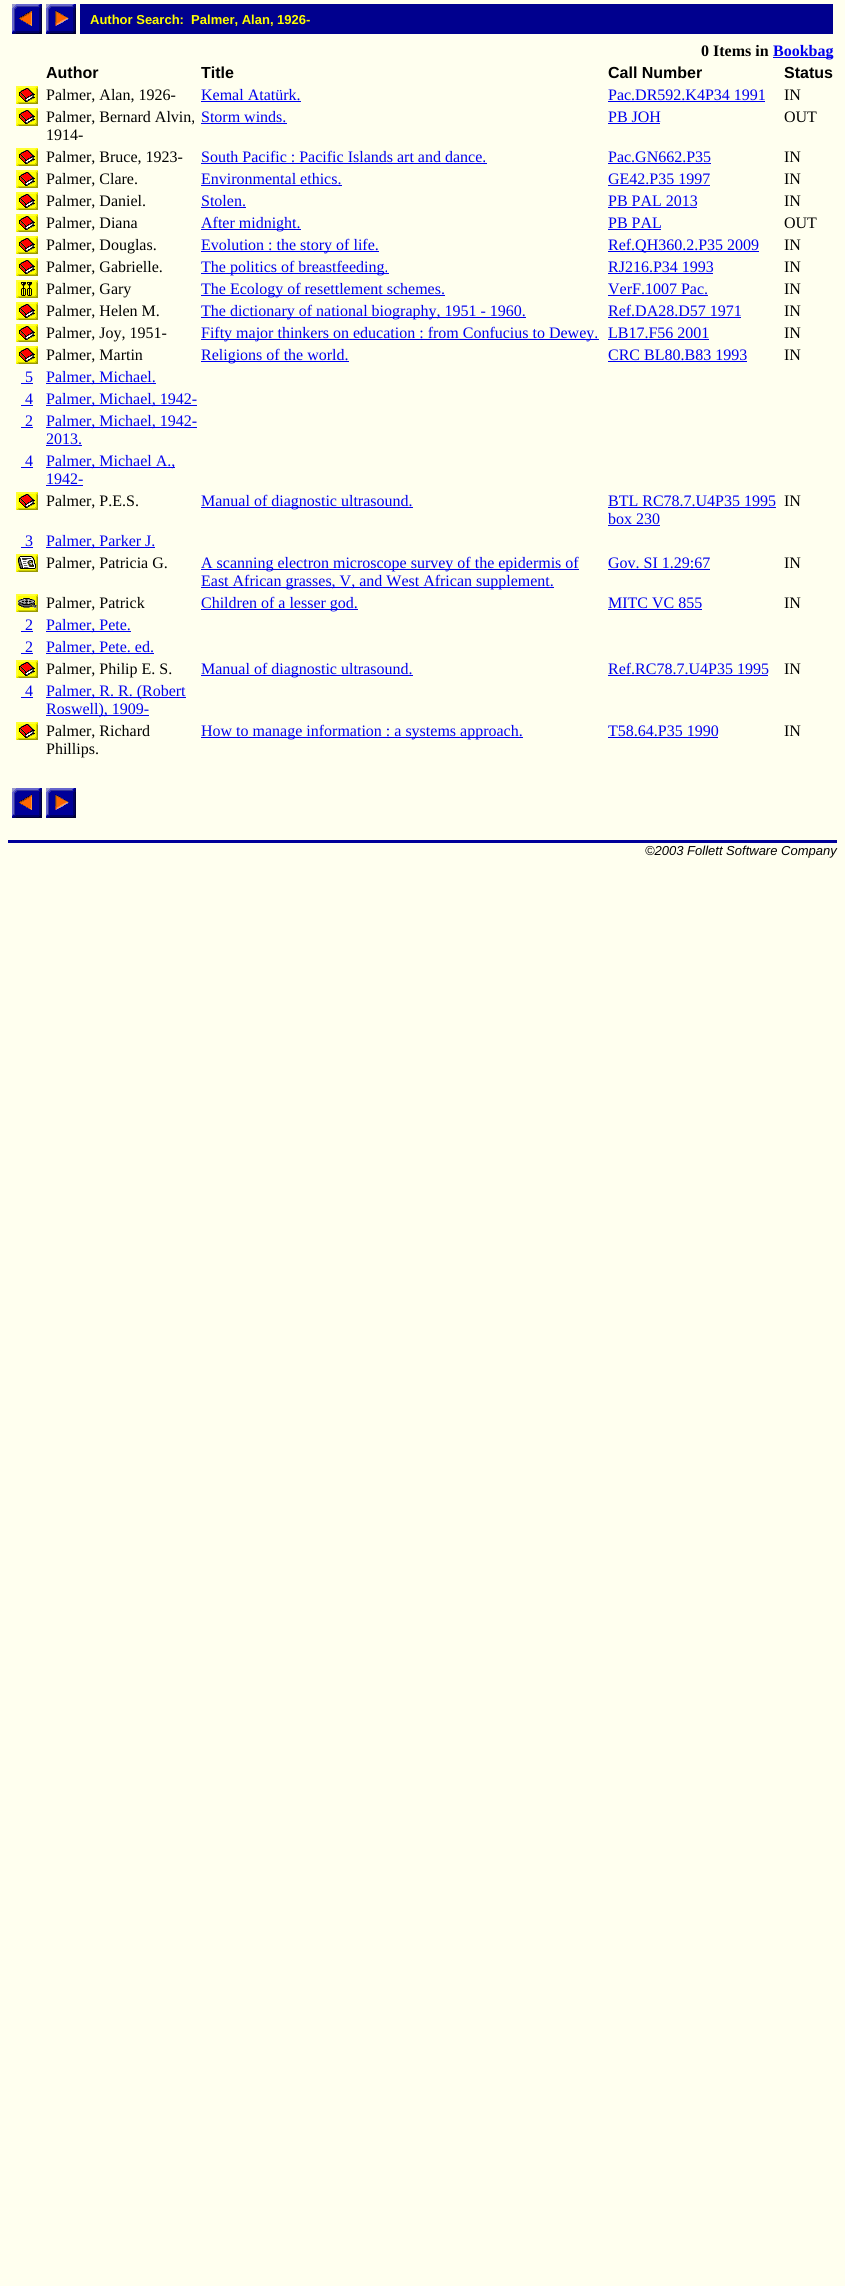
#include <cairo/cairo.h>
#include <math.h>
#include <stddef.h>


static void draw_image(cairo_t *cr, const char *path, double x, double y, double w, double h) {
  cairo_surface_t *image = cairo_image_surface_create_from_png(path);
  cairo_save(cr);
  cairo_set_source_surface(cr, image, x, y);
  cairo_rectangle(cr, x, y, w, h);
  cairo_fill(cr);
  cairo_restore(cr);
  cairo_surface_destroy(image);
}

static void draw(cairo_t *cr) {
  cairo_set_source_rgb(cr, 1, 1, 239 / 255.0);
  cairo_paint(cr);
  draw_image(cr, "images/1.png", 12, 4, 30, 30);
  draw_image(cr, "images/2.png", 46, 4, 30, 30);
  cairo_set_source_rgb(cr, 0, 0, 142 / 255.0);
  cairo_rectangle(cr, 80, 4, 753, 30);
  cairo_fill(cr);
  cairo_set_source_rgb(cr, 0, 0, 238 / 255.0);
  cairo_rectangle(cr, 773, 57, 60, 1);
  cairo_fill(cr);
  draw_image(cr, "images/3.png", 16, 86, 22, 18);
  cairo_rectangle(cr, 201, 101, 100, 1);
  cairo_fill(cr);
  cairo_rectangle(cr, 608, 101, 157, 1);
  cairo_fill(cr);
  draw_image(cr, "images/3.png", 16, 108, 22, 18);
  cairo_rectangle(cr, 201, 123, 86, 1);
  cairo_fill(cr);
  cairo_rectangle(cr, 608, 123, 52, 1);
  cairo_fill(cr);
  draw_image(cr, "images/3.png", 16, 148, 22, 18);
  cairo_rectangle(cr, 201, 163, 286, 1);
  cairo_fill(cr);
  cairo_rectangle(cr, 608, 163, 103, 1);
  cairo_fill(cr);
  draw_image(cr, "images/3.png", 16, 170, 22, 18);
  cairo_rectangle(cr, 201, 185, 141, 1);
  cairo_fill(cr);
  cairo_rectangle(cr, 608, 185, 102, 1);
  cairo_fill(cr);
  draw_image(cr, "images/3.png", 16, 192, 22, 18);
  cairo_rectangle(cr, 201, 207, 45, 1);
  cairo_fill(cr);
  cairo_rectangle(cr, 608, 207, 89, 1);
  cairo_fill(cr);
  draw_image(cr, "images/3.png", 16, 214, 22, 18);
  cairo_rectangle(cr, 201, 229, 100, 1);
  cairo_fill(cr);
  cairo_rectangle(cr, 608, 229, 53, 1);
  cairo_fill(cr);
  draw_image(cr, "images/3.png", 16, 236, 22, 18);
  cairo_rectangle(cr, 201, 251, 178, 1);
  cairo_fill(cr);
  cairo_rectangle(cr, 608, 251, 151, 1);
  cairo_fill(cr);
  draw_image(cr, "images/3.png", 16, 258, 22, 18);
  cairo_rectangle(cr, 201, 273, 188, 1);
  cairo_fill(cr);
  cairo_rectangle(cr, 608, 273, 105, 1);
  cairo_fill(cr);
  draw_image(cr, "images/4.png", 16, 280, 22, 18);
  cairo_rectangle(cr, 201, 295, 244, 1);
  cairo_fill(cr);
  cairo_rectangle(cr, 608, 295, 100, 1);
  cairo_fill(cr);
  draw_image(cr, "images/3.png", 16, 302, 22, 18);
  cairo_rectangle(cr, 201, 317, 325, 1);
  cairo_fill(cr);
  cairo_rectangle(cr, 608, 317, 133, 1);
  cairo_fill(cr);
  draw_image(cr, "images/3.png", 16, 324, 22, 18);
  cairo_rectangle(cr, 201, 339, 398, 1);
  cairo_fill(cr);
  cairo_rectangle(cr, 608, 339, 101, 1);
  cairo_fill(cr);
  draw_image(cr, "images/3.png", 16, 346, 22, 18);
  cairo_rectangle(cr, 201, 361, 148, 1);
  cairo_fill(cr);
  cairo_rectangle(cr, 608, 361, 139, 1);
  cairo_fill(cr);
  cairo_rectangle(cr, 21, 383, 12, 1);
  cairo_fill(cr);
  cairo_rectangle(cr, 46, 383, 110, 1);
  cairo_fill(cr);
  cairo_rectangle(cr, 21, 405, 12, 1);
  cairo_fill(cr);
  cairo_rectangle(cr, 46, 405, 151, 1);
  cairo_fill(cr);
  cairo_rectangle(cr, 21, 427, 12, 1);
  cairo_fill(cr);
  cairo_rectangle(cr, 46, 427, 151, 1);
  cairo_fill(cr);
  cairo_rectangle(cr, 46, 445, 36, 1);
  cairo_fill(cr);
  cairo_rectangle(cr, 21, 467, 12, 1);
  cairo_fill(cr);
  cairo_rectangle(cr, 46, 467, 129, 1);
  cairo_fill(cr);
  cairo_rectangle(cr, 46, 485, 37, 1);
  cairo_fill(cr);
  draw_image(cr, "images/3.png", 16, 492, 22, 18);
  cairo_rectangle(cr, 201, 507, 212, 1);
  cairo_fill(cr);
  cairo_rectangle(cr, 608, 507, 168, 1);
  cairo_fill(cr);
  cairo_rectangle(cr, 608, 525, 52, 1);
  cairo_fill(cr);
  cairo_rectangle(cr, 21, 547, 12, 1);
  cairo_fill(cr);
  cairo_rectangle(cr, 46, 547, 109, 1);
  cairo_fill(cr);
  draw_image(cr, "images/5.png", 16, 554, 22, 18);
  cairo_rectangle(cr, 201, 569, 378, 1);
  cairo_fill(cr);
  cairo_rectangle(cr, 201, 587, 353, 1);
  cairo_fill(cr);
  cairo_rectangle(cr, 608, 569, 102, 1);
  cairo_fill(cr);
  draw_image(cr, "images/6.png", 16, 594, 22, 18);
  cairo_rectangle(cr, 201, 609, 157, 1);
  cairo_fill(cr);
  cairo_rectangle(cr, 608, 609, 94, 1);
  cairo_fill(cr);
  cairo_rectangle(cr, 21, 631, 12, 1);
  cairo_fill(cr);
  cairo_rectangle(cr, 46, 631, 85, 1);
  cairo_fill(cr);
  cairo_rectangle(cr, 21, 653, 12, 1);
  cairo_fill(cr);
  cairo_rectangle(cr, 46, 653, 108, 1);
  cairo_fill(cr);
  draw_image(cr, "images/3.png", 16, 660, 22, 18);
  cairo_rectangle(cr, 201, 675, 212, 1);
  cairo_fill(cr);
  cairo_rectangle(cr, 608, 675, 160, 1);
  cairo_fill(cr);
  cairo_rectangle(cr, 21, 697, 12, 1);
  cairo_fill(cr);
  cairo_rectangle(cr, 46, 697, 140, 1);
  cairo_fill(cr);
  cairo_rectangle(cr, 46, 715, 103, 1);
  cairo_fill(cr);
  draw_image(cr, "images/3.png", 16, 722, 22, 18);
  cairo_rectangle(cr, 201, 737, 322, 1);
  cairo_fill(cr);
  cairo_rectangle(cr, 608, 737, 110, 1);
  cairo_fill(cr);
  draw_image(cr, "images/1.png", 12, 788, 30, 30);
  draw_image(cr, "images/2.png", 46, 788, 30, 30);
  cairo_set_source_rgb(cr, 0, 0, 153 / 255.0);
  cairo_rectangle(cr, 8, 840, 829, 3);
  cairo_fill(cr);
  cairo_select_font_face(cr, "Liberation Sans", CAIRO_FONT_SLANT_NORMAL, CAIRO_FONT_WEIGHT_BOLD);
  cairo_set_font_size(cr, 13);
  cairo_set_source_rgb(cr, 1, 1, 0);
  cairo_move_to(cr, 90, 24);
  cairo_show_text(cr, "Author Search:  Palmer, Alan, 1926-");
  cairo_select_font_face(cr, "Liberation Serif", CAIRO_FONT_SLANT_NORMAL, CAIRO_FONT_WEIGHT_BOLD);
  cairo_set_font_size(cr, 16);
  cairo_set_source_rgb(cr, 0, 0, 0);
  cairo_move_to(cr, 701, 56);
  cairo_show_text(cr, "0 Items in");
  cairo_set_source_rgb(cr, 0, 0, 238 / 255.0);
  cairo_move_to(cr, 773, 56);
  cairo_show_text(cr, "Bookbag");
  cairo_select_font_face(cr, "Liberation Sans", CAIRO_FONT_SLANT_NORMAL, CAIRO_FONT_WEIGHT_BOLD);
  cairo_set_source_rgb(cr, 0, 0, 0);
  cairo_move_to(cr, 46, 78);
  cairo_show_text(cr, "Author");
  cairo_move_to(cr, 201, 78);
  cairo_show_text(cr, "Title");
  cairo_move_to(cr, 608, 78);
  cairo_show_text(cr, "Call Number");
  cairo_move_to(cr, 784, 78);
  cairo_show_text(cr, "Status");
  cairo_select_font_face(cr, "Liberation Serif", CAIRO_FONT_SLANT_NORMAL, CAIRO_FONT_WEIGHT_NORMAL);
  cairo_move_to(cr, 46, 100);
  cairo_show_text(cr, "Palmer, Alan, 1926-");
  cairo_set_source_rgb(cr, 0, 0, 238 / 255.0);
  cairo_move_to(cr, 201, 100);
  cairo_show_text(cr, "Kemal Atatürk.");
  cairo_move_to(cr, 608, 100);
  cairo_show_text(cr, "Pac.DR592.K4P34 1991");
  cairo_set_source_rgb(cr, 0, 0, 0);
  cairo_move_to(cr, 784, 100);
  cairo_show_text(cr, "IN");
  cairo_move_to(cr, 46, 122);
  cairo_show_text(cr, "Palmer, Bernard Alvin,");
  cairo_move_to(cr, 46, 140);
  cairo_show_text(cr, "1914-");
  cairo_set_source_rgb(cr, 0, 0, 238 / 255.0);
  cairo_move_to(cr, 201, 122);
  cairo_show_text(cr, "Storm winds.");
  cairo_move_to(cr, 608, 122);
  cairo_show_text(cr, "PB JOH");
  cairo_set_source_rgb(cr, 0, 0, 0);
  cairo_move_to(cr, 784, 122);
  cairo_show_text(cr, "OUT");
  cairo_move_to(cr, 46, 162);
  cairo_show_text(cr, "Palmer, Bruce, 1923-");
  cairo_set_source_rgb(cr, 0, 0, 238 / 255.0);
  cairo_move_to(cr, 201, 162);
  cairo_show_text(cr, "South Pacific : Pacific Islands art and dance.");
  cairo_move_to(cr, 608, 162);
  cairo_show_text(cr, "Pac.GN662.P35");
  cairo_set_source_rgb(cr, 0, 0, 0);
  cairo_move_to(cr, 784, 162);
  cairo_show_text(cr, "IN");
  cairo_move_to(cr, 46, 184);
  cairo_show_text(cr, "Palmer, Clare.");
  cairo_set_source_rgb(cr, 0, 0, 238 / 255.0);
  cairo_move_to(cr, 201, 184);
  cairo_show_text(cr, "Environmental ethics.");
  cairo_move_to(cr, 608, 184);
  cairo_show_text(cr, "GE42.P35 1997");
  cairo_set_source_rgb(cr, 0, 0, 0);
  cairo_move_to(cr, 784, 184);
  cairo_show_text(cr, "IN");
  cairo_move_to(cr, 46, 206);
  cairo_show_text(cr, "Palmer, Daniel.");
  cairo_set_source_rgb(cr, 0, 0, 238 / 255.0);
  cairo_move_to(cr, 201, 206);
  cairo_show_text(cr, "Stolen.");
  cairo_move_to(cr, 608, 206);
  cairo_show_text(cr, "PB PAL 2013");
  cairo_set_source_rgb(cr, 0, 0, 0);
  cairo_move_to(cr, 784, 206);
  cairo_show_text(cr, "IN");
  cairo_move_to(cr, 46, 228);
  cairo_show_text(cr, "Palmer, Diana");
  cairo_set_source_rgb(cr, 0, 0, 238 / 255.0);
  cairo_move_to(cr, 201, 228);
  cairo_show_text(cr, "After midnight.");
  cairo_move_to(cr, 608, 228);
  cairo_show_text(cr, "PB PAL");
  cairo_set_source_rgb(cr, 0, 0, 0);
  cairo_move_to(cr, 784, 228);
  cairo_show_text(cr, "OUT");
  cairo_move_to(cr, 46, 250);
  cairo_show_text(cr, "Palmer, Douglas.");
  cairo_set_source_rgb(cr, 0, 0, 238 / 255.0);
  cairo_move_to(cr, 201, 250);
  cairo_show_text(cr, "Evolution : the story of life.");
  cairo_move_to(cr, 608, 250);
  cairo_show_text(cr, "Ref.QH360.2.P35 2009");
  cairo_set_source_rgb(cr, 0, 0, 0);
  cairo_move_to(cr, 784, 250);
  cairo_show_text(cr, "IN");
  cairo_move_to(cr, 46, 272);
  cairo_show_text(cr, "Palmer, Gabrielle.");
  cairo_set_source_rgb(cr, 0, 0, 238 / 255.0);
  cairo_move_to(cr, 201, 272);
  cairo_show_text(cr, "The politics of breastfeeding.");
  cairo_move_to(cr, 608, 272);
  cairo_show_text(cr, "RJ216.P34 1993");
  cairo_set_source_rgb(cr, 0, 0, 0);
  cairo_move_to(cr, 784, 272);
  cairo_show_text(cr, "IN");
  cairo_move_to(cr, 46, 294);
  cairo_show_text(cr, "Palmer, Gary");
  cairo_set_source_rgb(cr, 0, 0, 238 / 255.0);
  cairo_move_to(cr, 201, 294);
  cairo_show_text(cr, "The Ecology of resettlement schemes.");
  cairo_move_to(cr, 608, 294);
  cairo_show_text(cr, "VerF.1007 Pac.");
  cairo_set_source_rgb(cr, 0, 0, 0);
  cairo_move_to(cr, 784, 294);
  cairo_show_text(cr, "IN");
  cairo_move_to(cr, 46, 316);
  cairo_show_text(cr, "Palmer, Helen M.");
  cairo_set_source_rgb(cr, 0, 0, 238 / 255.0);
  cairo_move_to(cr, 201, 316);
  cairo_show_text(cr, "The dictionary of national biography, 1951 - 1960.");
  cairo_move_to(cr, 608, 316);
  cairo_show_text(cr, "Ref.DA28.D57 1971");
  cairo_set_source_rgb(cr, 0, 0, 0);
  cairo_move_to(cr, 784, 316);
  cairo_show_text(cr, "IN");
  cairo_move_to(cr, 46, 338);
  cairo_show_text(cr, "Palmer, Joy, 1951-");
  cairo_set_source_rgb(cr, 0, 0, 238 / 255.0);
  cairo_move_to(cr, 201, 338);
  cairo_show_text(cr, "Fifty major thinkers on education : from Confucius to Dewey.");
  cairo_move_to(cr, 608, 338);
  cairo_show_text(cr, "LB17.F56 2001");
  cairo_set_source_rgb(cr, 0, 0, 0);
  cairo_move_to(cr, 784, 338);
  cairo_show_text(cr, "IN");
  cairo_move_to(cr, 46, 360);
  cairo_show_text(cr, "Palmer, Martin");
  cairo_set_source_rgb(cr, 0, 0, 238 / 255.0);
  cairo_move_to(cr, 201, 360);
  cairo_show_text(cr, "Religions of the world.");
  cairo_move_to(cr, 608, 360);
  cairo_show_text(cr, "CRC BL80.B83 1993");
  cairo_set_source_rgb(cr, 0, 0, 0);
  cairo_move_to(cr, 784, 360);
  cairo_show_text(cr, "IN");
  cairo_set_source_rgb(cr, 0, 0, 238 / 255.0);
  cairo_move_to(cr, 25, 382);
  cairo_show_text(cr, "5");
  cairo_move_to(cr, 46, 382);
  cairo_show_text(cr, "Palmer, Michael.");
  cairo_move_to(cr, 25, 404);
  cairo_show_text(cr, "4");
  cairo_move_to(cr, 46, 404);
  cairo_show_text(cr, "Palmer, Michael, 1942-");
  cairo_move_to(cr, 25, 426);
  cairo_show_text(cr, "2");
  cairo_move_to(cr, 46, 426);
  cairo_show_text(cr, "Palmer, Michael, 1942-");
  cairo_move_to(cr, 46, 444);
  cairo_show_text(cr, "2013.");
  cairo_move_to(cr, 25, 466);
  cairo_show_text(cr, "4");
  cairo_move_to(cr, 46, 466);
  cairo_show_text(cr, "Palmer, Michael A.,");
  cairo_move_to(cr, 46, 484);
  cairo_show_text(cr, "1942-");
  cairo_set_source_rgb(cr, 0, 0, 0);
  cairo_move_to(cr, 46, 506);
  cairo_show_text(cr, "Palmer, P.E.S.");
  cairo_set_source_rgb(cr, 0, 0, 238 / 255.0);
  cairo_move_to(cr, 201, 506);
  cairo_show_text(cr, "Manual of diagnostic ultrasound.");
  cairo_move_to(cr, 608, 506);
  cairo_show_text(cr, "BTL RC78.7.U4P35 1995");
  cairo_move_to(cr, 608, 524);
  cairo_show_text(cr, "box 230");
  cairo_set_source_rgb(cr, 0, 0, 0);
  cairo_move_to(cr, 784, 506);
  cairo_show_text(cr, "IN");
  cairo_set_source_rgb(cr, 0, 0, 238 / 255.0);
  cairo_move_to(cr, 25, 546);
  cairo_show_text(cr, "3");
  cairo_move_to(cr, 46, 546);
  cairo_show_text(cr, "Palmer, Parker J.");
  cairo_set_source_rgb(cr, 0, 0, 0);
  cairo_move_to(cr, 46, 568);
  cairo_show_text(cr, "Palmer, Patricia G.");
  cairo_set_source_rgb(cr, 0, 0, 238 / 255.0);
  cairo_move_to(cr, 201, 568);
  cairo_show_text(cr, "A scanning electron microscope survey of the epidermis of");
  cairo_move_to(cr, 201, 586);
  cairo_show_text(cr, "East African grasses, V, and West African supplement.");
  cairo_move_to(cr, 608, 568);
  cairo_show_text(cr, "Gov. SI 1.29:67");
  cairo_set_source_rgb(cr, 0, 0, 0);
  cairo_move_to(cr, 784, 568);
  cairo_show_text(cr, "IN");
  cairo_move_to(cr, 46, 608);
  cairo_show_text(cr, "Palmer, Patrick");
  cairo_set_source_rgb(cr, 0, 0, 238 / 255.0);
  cairo_move_to(cr, 201, 608);
  cairo_show_text(cr, "Children of a lesser god.");
  cairo_move_to(cr, 608, 608);
  cairo_show_text(cr, "MITC VC 855");
  cairo_set_source_rgb(cr, 0, 0, 0);
  cairo_move_to(cr, 784, 608);
  cairo_show_text(cr, "IN");
  cairo_set_source_rgb(cr, 0, 0, 238 / 255.0);
  cairo_move_to(cr, 25, 630);
  cairo_show_text(cr, "2");
  cairo_move_to(cr, 46, 630);
  cairo_show_text(cr, "Palmer, Pete.");
  cairo_move_to(cr, 25, 652);
  cairo_show_text(cr, "2");
  cairo_move_to(cr, 46, 652);
  cairo_show_text(cr, "Palmer, Pete. ed.");
  cairo_set_source_rgb(cr, 0, 0, 0);
  cairo_move_to(cr, 46, 674);
  cairo_show_text(cr, "Palmer, Philip E. S.");
  cairo_set_source_rgb(cr, 0, 0, 238 / 255.0);
  cairo_move_to(cr, 201, 674);
  cairo_show_text(cr, "Manual of diagnostic ultrasound.");
  cairo_move_to(cr, 608, 674);
  cairo_show_text(cr, "Ref.RC78.7.U4P35 1995");
  cairo_set_source_rgb(cr, 0, 0, 0);
  cairo_move_to(cr, 784, 674);
  cairo_show_text(cr, "IN");
  cairo_set_source_rgb(cr, 0, 0, 238 / 255.0);
  cairo_move_to(cr, 25, 696);
  cairo_show_text(cr, "4");
  cairo_move_to(cr, 46, 696);
  cairo_show_text(cr, "Palmer, R. R. (Robert");
  cairo_move_to(cr, 46, 714);
  cairo_show_text(cr, "Roswell), 1909-");
  cairo_set_source_rgb(cr, 0, 0, 0);
  cairo_move_to(cr, 46, 736);
  cairo_show_text(cr, "Palmer, Richard");
  cairo_move_to(cr, 46, 754);
  cairo_show_text(cr, "Phillips.");
  cairo_set_source_rgb(cr, 0, 0, 238 / 255.0);
  cairo_move_to(cr, 201, 736);
  cairo_show_text(cr, "How to manage information : a systems approach.");
  cairo_move_to(cr, 608, 736);
  cairo_show_text(cr, "T58.64.P35 1990");
  cairo_set_source_rgb(cr, 0, 0, 0);
  cairo_move_to(cr, 784, 736);
  cairo_show_text(cr, "IN");
  cairo_select_font_face(cr, "Liberation Sans", CAIRO_FONT_SLANT_ITALIC, CAIRO_FONT_WEIGHT_NORMAL);
  cairo_set_font_size(cr, 13);
  cairo_move_to(cr, 645, 855);
  cairo_show_text(cr, "©2003 Follett Software Company");
}

int main(void) {
  cairo_surface_t *surface = cairo_image_surface_create(CAIRO_FORMAT_RGB24, 845, 2286);
  cairo_t *cr = cairo_create(surface);
  cairo_font_options_t *options = cairo_font_options_create();
  cairo_font_options_set_hint_metrics(options, CAIRO_HINT_METRICS_OFF);
  cairo_font_options_set_hint_style(options, CAIRO_HINT_STYLE_NONE);
  cairo_set_font_options(cr, options);
  cairo_set_miter_limit(cr, 4);
  draw(cr);
  cairo_surface_write_to_png(surface, "out.png");
  cairo_font_options_destroy(options);
  cairo_destroy(cr);
  cairo_surface_destroy(surface);
  return 0;
}
